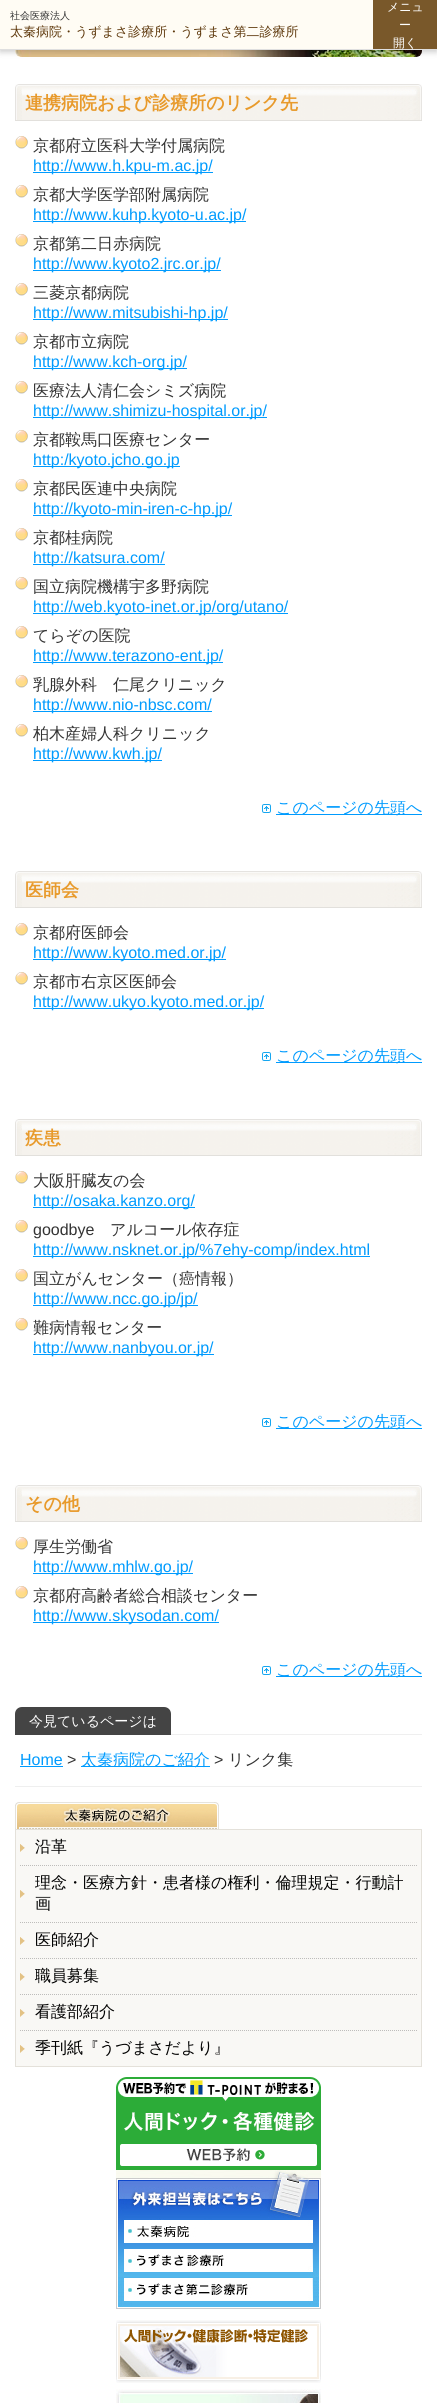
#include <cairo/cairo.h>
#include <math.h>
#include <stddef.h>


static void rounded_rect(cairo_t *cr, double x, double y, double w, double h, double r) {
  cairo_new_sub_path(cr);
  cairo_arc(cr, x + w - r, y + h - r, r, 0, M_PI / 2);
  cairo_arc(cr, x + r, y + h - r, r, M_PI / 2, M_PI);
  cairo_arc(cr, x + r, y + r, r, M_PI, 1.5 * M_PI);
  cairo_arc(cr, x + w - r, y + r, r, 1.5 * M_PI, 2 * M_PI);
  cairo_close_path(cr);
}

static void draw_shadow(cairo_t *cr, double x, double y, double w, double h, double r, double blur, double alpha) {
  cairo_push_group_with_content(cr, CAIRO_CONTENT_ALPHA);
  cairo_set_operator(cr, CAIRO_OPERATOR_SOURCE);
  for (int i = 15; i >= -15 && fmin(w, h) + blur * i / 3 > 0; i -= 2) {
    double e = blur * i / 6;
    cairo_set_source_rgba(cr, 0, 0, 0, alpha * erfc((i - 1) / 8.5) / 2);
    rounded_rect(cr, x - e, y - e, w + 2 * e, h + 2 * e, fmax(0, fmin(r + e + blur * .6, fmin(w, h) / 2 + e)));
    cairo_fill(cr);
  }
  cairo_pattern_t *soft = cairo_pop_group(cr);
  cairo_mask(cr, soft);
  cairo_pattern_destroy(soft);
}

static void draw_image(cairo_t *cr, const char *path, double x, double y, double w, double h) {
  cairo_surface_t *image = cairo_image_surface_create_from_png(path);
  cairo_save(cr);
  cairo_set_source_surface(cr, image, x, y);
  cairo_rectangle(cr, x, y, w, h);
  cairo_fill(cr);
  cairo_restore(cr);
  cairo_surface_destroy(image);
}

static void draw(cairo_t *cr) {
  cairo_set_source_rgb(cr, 1, 1, 1);
  cairo_paint(cr);
  draw_image(cr, "images/1.png", 15, 50, 407, 7);
  cairo_set_source_rgb(cr, 0, 0, 0);
  draw_shadow(cr, 0, 2, 437, 50, 0, 3, 0.2);
  cairo_set_source_rgb(cr, 1, 252 / 255.0, 244 / 255.0);
  cairo_rectangle(cr, 0, 0, 373, 49);
  cairo_fill(cr);
  cairo_set_source_rgb(cr, 223 / 255.0, 223 / 255.0, 223 / 255.0);
  cairo_rectangle(cr, 0, 49, 437, 1);
  cairo_fill(cr);
  cairo_set_source_rgb(cr, 121 / 255.0, 88 / 255.0, 42 / 255.0);
  cairo_rectangle(cr, 373, 0, 64, 49);
  cairo_fill(cr);
  draw_image(cr, "images/2.png", 15, 84, 407, 36);
  cairo_set_source_rgb(cr, 226 / 255.0, 224 / 255.0, 220 / 255.0);
  cairo_rectangle(cr, 15, 120, 407, 1);
  cairo_fill(cr);
  draw_image(cr, "images/3.png", 15, 136, 13, 13);
  cairo_set_source_rgb(cr, 0, 155 / 255.0, 254 / 255.0);
  cairo_rectangle(cr, 33, 172, 180, 1);
  cairo_fill(cr);
  draw_image(cr, "images/3.png", 15, 185, 13, 13);
  cairo_rectangle(cr, 33, 221, 213, 1);
  cairo_fill(cr);
  draw_image(cr, "images/3.png", 15, 234, 13, 13);
  cairo_rectangle(cr, 33, 270, 188, 1);
  cairo_fill(cr);
  draw_image(cr, "images/3.png", 15, 283, 13, 13);
  cairo_rectangle(cr, 33, 319, 195, 1);
  cairo_fill(cr);
  draw_image(cr, "images/3.png", 15, 332, 13, 13);
  cairo_rectangle(cr, 33, 368, 154, 1);
  cairo_fill(cr);
  draw_image(cr, "images/3.png", 15, 381, 13, 13);
  cairo_rectangle(cr, 33, 417, 234, 1);
  cairo_fill(cr);
  draw_image(cr, "images/3.png", 15, 430, 13, 13);
  cairo_rectangle(cr, 33, 466, 147, 1);
  cairo_fill(cr);
  draw_image(cr, "images/3.png", 15, 479, 13, 13);
  cairo_rectangle(cr, 33, 515, 199, 1);
  cairo_fill(cr);
  draw_image(cr, "images/3.png", 15, 528, 13, 13);
  cairo_rectangle(cr, 33, 564, 132, 1);
  cairo_fill(cr);
  draw_image(cr, "images/3.png", 15, 577, 13, 13);
  cairo_rectangle(cr, 33, 613, 255, 1);
  cairo_fill(cr);
  draw_image(cr, "images/3.png", 15, 626, 13, 13);
  cairo_rectangle(cr, 33, 662, 190, 1);
  cairo_fill(cr);
  draw_image(cr, "images/3.png", 15, 675, 13, 13);
  cairo_rectangle(cr, 33, 711, 179, 1);
  cairo_fill(cr);
  draw_image(cr, "images/3.png", 15, 724, 13, 13);
  cairo_rectangle(cr, 33, 760, 129, 1);
  cairo_fill(cr);
  draw_image(cr, "images/4.png", 262, 804, 9, 9);
  cairo_rectangle(cr, 276, 814, 146, 1);
  cairo_fill(cr);
  draw_image(cr, "images/2.png", 15, 871, 407, 36);
  cairo_set_source_rgb(cr, 226 / 255.0, 224 / 255.0, 220 / 255.0);
  cairo_rectangle(cr, 15, 907, 407, 1);
  cairo_fill(cr);
  draw_image(cr, "images/3.png", 15, 923, 13, 13);
  cairo_set_source_rgb(cr, 0, 155 / 255.0, 254 / 255.0);
  cairo_rectangle(cr, 33, 959, 193, 1);
  cairo_fill(cr);
  draw_image(cr, "images/3.png", 15, 972, 13, 13);
  cairo_rectangle(cr, 33, 1008, 231, 1);
  cairo_fill(cr);
  draw_image(cr, "images/4.png", 262, 1052, 9, 9);
  cairo_rectangle(cr, 276, 1062, 146, 1);
  cairo_fill(cr);
  draw_image(cr, "images/2.png", 15, 1119, 407, 36);
  cairo_set_source_rgb(cr, 226 / 255.0, 224 / 255.0, 220 / 255.0);
  cairo_rectangle(cr, 15, 1155, 407, 1);
  cairo_fill(cr);
  draw_image(cr, "images/3.png", 15, 1171, 13, 13);
  cairo_set_source_rgb(cr, 0, 155 / 255.0, 254 / 255.0);
  cairo_rectangle(cr, 33, 1207, 162, 1);
  cairo_fill(cr);
  draw_image(cr, "images/3.png", 15, 1220, 13, 13);
  cairo_rectangle(cr, 33, 1256, 337, 1);
  cairo_fill(cr);
  draw_image(cr, "images/3.png", 15, 1269, 13, 13);
  cairo_rectangle(cr, 33, 1305, 165, 1);
  cairo_fill(cr);
  draw_image(cr, "images/3.png", 15, 1318, 13, 13);
  cairo_rectangle(cr, 33, 1354, 181, 1);
  cairo_fill(cr);
  draw_image(cr, "images/4.png", 262, 1418, 9, 9);
  cairo_rectangle(cr, 276, 1428, 146, 1);
  cairo_fill(cr);
  draw_image(cr, "images/2.png", 15, 1485, 407, 36);
  cairo_set_source_rgb(cr, 226 / 255.0, 224 / 255.0, 220 / 255.0);
  cairo_rectangle(cr, 15, 1521, 407, 1);
  cairo_fill(cr);
  draw_image(cr, "images/3.png", 15, 1537, 13, 13);
  cairo_set_source_rgb(cr, 0, 155 / 255.0, 254 / 255.0);
  cairo_rectangle(cr, 33, 1573, 160, 1);
  cairo_fill(cr);
  draw_image(cr, "images/3.png", 15, 1586, 13, 13);
  cairo_rectangle(cr, 33, 1622, 186, 1);
  cairo_fill(cr);
  draw_image(cr, "images/4.png", 262, 1666, 9, 9);
  cairo_rectangle(cr, 276, 1676, 146, 1);
  cairo_fill(cr);
  cairo_set_source_rgb(cr, 239 / 255.0, 239 / 255.0, 239 / 255.0);
  cairo_rectangle(cr, 171, 1734, 251, 1);
  cairo_fill(cr);
  cairo_rectangle(cr, 15, 1786, 407, 1);
  cairo_fill(cr);
  cairo_set_source_rgb(cr, 68 / 255.0, 68 / 255.0, 68 / 255.0);
  cairo_new_path(cr);
  cairo_move_to(cr, 22, 1707);
  cairo_line_to(cr, 164, 1707);
  cairo_curve_to(cr, 168, 1707, 171, 1710, 171, 1714);
  cairo_line_to(cr, 171, 1735);
  cairo_line_to(cr, 15, 1735);
  cairo_line_to(cr, 15, 1714);
  cairo_curve_to(cr, 15, 1710, 18, 1707, 22, 1707);
  cairo_close_path(cr);
  cairo_fill(cr);
  cairo_set_source_rgb(cr, 0, 155 / 255.0, 254 / 255.0);
  cairo_rectangle(cr, 20, 1766, 43, 1);
  cairo_fill(cr);
  cairo_rectangle(cr, 81, 1766, 129, 1);
  cairo_fill(cr);
  draw_image(cr, "images/5.png", 15, 1802, 204, 27);
  cairo_set_source_rgb(cr, 249 / 255.0, 248 / 255.0, 245 / 255.0);
  cairo_rectangle(cr, 15.5, 1829.5, 406, 237);
  cairo_fill_preserve(cr);
  cairo_set_source_rgb(cr, 228 / 255.0, 225 / 255.0, 218 / 255.0);
  cairo_set_line_width(cr, 1);
  cairo_stroke(cr);
  draw_image(cr, "images/6.png", 20, 1844, 5, 8);
  cairo_new_path(cr);
  cairo_move_to(cr, 20, 1865.5);
  cairo_line_to(cr, 417, 1865.5);
  cairo_set_source_rgb(cr, 190 / 255.0, 189 / 255.0, 187 / 255.0);
  cairo_set_dash(cr, (double[]){1, 1}, 2, 0);
  cairo_stroke(cr);
  draw_image(cr, "images/6.png", 20, 1890, 5, 8);
  cairo_new_path(cr);
  cairo_move_to(cr, 20, 1922.5);
  cairo_line_to(cr, 417, 1922.5);
  cairo_stroke(cr);
  draw_image(cr, "images/6.png", 20, 1937, 5, 8);
  cairo_new_path(cr);
  cairo_move_to(cr, 20, 1958.5);
  cairo_line_to(cr, 417, 1958.5);
  cairo_stroke(cr);
  draw_image(cr, "images/6.png", 20, 1973, 5, 8);
  cairo_new_path(cr);
  cairo_move_to(cr, 20, 1994.5);
  cairo_line_to(cr, 417, 1994.5);
  cairo_stroke(cr);
  draw_image(cr, "images/6.png", 20, 2009, 5, 8);
  cairo_new_path(cr);
  cairo_move_to(cr, 20, 2030.5);
  cairo_line_to(cr, 417, 2030.5);
  cairo_stroke(cr);
  draw_image(cr, "images/6.png", 20, 2045, 5, 8);
  draw_image(cr, "images/7.png", 116, 2077, 205, 93);
  draw_image(cr, "images/8.png", 116, 2170, 205, 139);
  draw_image(cr, "images/9.png", 116, 2320, 205, 63);
  draw_image(cr, "images/10.png", 116, 2389, 205, 14);
  cairo_select_font_face(cr, "WenQuanYi Zen Hei Medium", CAIRO_FONT_SLANT_NORMAL, CAIRO_FONT_WEIGHT_NORMAL);
  cairo_set_font_size(cr, 10);
  cairo_set_source_rgb(cr, 51 / 255.0, 51 / 255.0, 51 / 255.0);
  cairo_move_to(cr, 10, 19);
  cairo_show_text(cr, "社会医療法人");
  cairo_set_font_size(cr, 13);
  cairo_set_source_rgb(cr, 93 / 255.0, 55 / 255.0, 10 / 255.0);
  cairo_move_to(cr, 10, 36);
  cairo_show_text(cr, "太秦病院・うずまさ診療所・うずまさ第二診療所");
  cairo_set_font_size(cr, 12);
  cairo_set_source_rgb(cr, 1, 1, 1);
  cairo_move_to(cr, 387, 11);
  cairo_show_text(cr, "メニュ");
  cairo_move_to(cr, 399, 29);
  cairo_show_text(cr, "ー");
  cairo_move_to(cr, 393, 47);
  cairo_show_text(cr, "開く");
  cairo_select_font_face(cr, "WenQuanYi Zen Hei", CAIRO_FONT_SLANT_NORMAL, CAIRO_FONT_WEIGHT_BOLD);
  cairo_set_font_size(cr, 18);
  cairo_set_source_rgb(cr, 232 / 255.0, 154 / 255.0, 43 / 255.0);
  cairo_move_to(cr, 25, 109);
  cairo_show_text(cr, "連携病院および診療所のリンク先");
  cairo_select_font_face(cr, "WenQuanYi Zen Hei Medium", CAIRO_FONT_SLANT_NORMAL, CAIRO_FONT_WEIGHT_NORMAL);
  cairo_set_font_size(cr, 16);
  cairo_set_source_rgb(cr, 51 / 255.0, 51 / 255.0, 51 / 255.0);
  cairo_move_to(cr, 33, 151);
  cairo_show_text(cr, "京都府立医科大学付属病院");
  cairo_select_font_face(cr, "Liberation Sans", CAIRO_FONT_SLANT_NORMAL, CAIRO_FONT_WEIGHT_NORMAL);
  cairo_set_source_rgb(cr, 0, 155 / 255.0, 254 / 255.0);
  cairo_move_to(cr, 33, 171);
  cairo_show_text(cr, "http://www.h.kpu-m.ac.jp/");
  cairo_select_font_face(cr, "WenQuanYi Zen Hei Medium", CAIRO_FONT_SLANT_NORMAL, CAIRO_FONT_WEIGHT_NORMAL);
  cairo_set_source_rgb(cr, 51 / 255.0, 51 / 255.0, 51 / 255.0);
  cairo_move_to(cr, 33, 200);
  cairo_show_text(cr, "京都大学医学部附属病院");
  cairo_select_font_face(cr, "Liberation Sans", CAIRO_FONT_SLANT_NORMAL, CAIRO_FONT_WEIGHT_NORMAL);
  cairo_set_source_rgb(cr, 0, 155 / 255.0, 254 / 255.0);
  cairo_move_to(cr, 33, 220);
  cairo_show_text(cr, "http://www.kuhp.kyoto-u.ac.jp/");
  cairo_select_font_face(cr, "WenQuanYi Zen Hei Medium", CAIRO_FONT_SLANT_NORMAL, CAIRO_FONT_WEIGHT_NORMAL);
  cairo_set_source_rgb(cr, 51 / 255.0, 51 / 255.0, 51 / 255.0);
  cairo_move_to(cr, 33, 249);
  cairo_show_text(cr, "京都第二日赤病院");
  cairo_select_font_face(cr, "Liberation Sans", CAIRO_FONT_SLANT_NORMAL, CAIRO_FONT_WEIGHT_NORMAL);
  cairo_set_source_rgb(cr, 0, 155 / 255.0, 254 / 255.0);
  cairo_move_to(cr, 33, 269);
  cairo_show_text(cr, "http://www.kyoto2.jrc.or.jp/");
  cairo_select_font_face(cr, "WenQuanYi Zen Hei Medium", CAIRO_FONT_SLANT_NORMAL, CAIRO_FONT_WEIGHT_NORMAL);
  cairo_set_source_rgb(cr, 51 / 255.0, 51 / 255.0, 51 / 255.0);
  cairo_move_to(cr, 33, 298);
  cairo_show_text(cr, "三菱京都病院");
  cairo_select_font_face(cr, "Liberation Sans", CAIRO_FONT_SLANT_NORMAL, CAIRO_FONT_WEIGHT_NORMAL);
  cairo_set_source_rgb(cr, 0, 155 / 255.0, 254 / 255.0);
  cairo_move_to(cr, 33, 318);
  cairo_show_text(cr, "http://www.mitsubishi-hp.jp/");
  cairo_select_font_face(cr, "WenQuanYi Zen Hei Medium", CAIRO_FONT_SLANT_NORMAL, CAIRO_FONT_WEIGHT_NORMAL);
  cairo_set_source_rgb(cr, 51 / 255.0, 51 / 255.0, 51 / 255.0);
  cairo_move_to(cr, 33, 347);
  cairo_show_text(cr, "京都市立病院");
  cairo_select_font_face(cr, "Liberation Sans", CAIRO_FONT_SLANT_NORMAL, CAIRO_FONT_WEIGHT_NORMAL);
  cairo_set_source_rgb(cr, 0, 155 / 255.0, 254 / 255.0);
  cairo_move_to(cr, 33, 367);
  cairo_show_text(cr, "http://www.kch-org.jp/");
  cairo_select_font_face(cr, "WenQuanYi Zen Hei Medium", CAIRO_FONT_SLANT_NORMAL, CAIRO_FONT_WEIGHT_NORMAL);
  cairo_set_source_rgb(cr, 51 / 255.0, 51 / 255.0, 51 / 255.0);
  cairo_move_to(cr, 33, 396);
  cairo_show_text(cr, "医療法人清仁会シミズ病院");
  cairo_select_font_face(cr, "Liberation Sans", CAIRO_FONT_SLANT_NORMAL, CAIRO_FONT_WEIGHT_NORMAL);
  cairo_set_source_rgb(cr, 0, 155 / 255.0, 254 / 255.0);
  cairo_move_to(cr, 33, 416);
  cairo_show_text(cr, "http://www.shimizu-hospital.or.jp/");
  cairo_select_font_face(cr, "WenQuanYi Zen Hei Medium", CAIRO_FONT_SLANT_NORMAL, CAIRO_FONT_WEIGHT_NORMAL);
  cairo_set_source_rgb(cr, 51 / 255.0, 51 / 255.0, 51 / 255.0);
  cairo_move_to(cr, 33, 445);
  cairo_show_text(cr, "京都鞍馬口医療センター");
  cairo_select_font_face(cr, "Liberation Sans", CAIRO_FONT_SLANT_NORMAL, CAIRO_FONT_WEIGHT_NORMAL);
  cairo_set_source_rgb(cr, 0, 155 / 255.0, 254 / 255.0);
  cairo_move_to(cr, 33, 465);
  cairo_show_text(cr, "http:/kyoto.jcho.go.jp");
  cairo_select_font_face(cr, "WenQuanYi Zen Hei Medium", CAIRO_FONT_SLANT_NORMAL, CAIRO_FONT_WEIGHT_NORMAL);
  cairo_set_source_rgb(cr, 51 / 255.0, 51 / 255.0, 51 / 255.0);
  cairo_move_to(cr, 33, 494);
  cairo_show_text(cr, "京都民医連中央病院");
  cairo_select_font_face(cr, "Liberation Sans", CAIRO_FONT_SLANT_NORMAL, CAIRO_FONT_WEIGHT_NORMAL);
  cairo_set_source_rgb(cr, 0, 155 / 255.0, 254 / 255.0);
  cairo_move_to(cr, 33, 514);
  cairo_show_text(cr, "http://kyoto-min-iren-c-hp.jp/");
  cairo_select_font_face(cr, "WenQuanYi Zen Hei Medium", CAIRO_FONT_SLANT_NORMAL, CAIRO_FONT_WEIGHT_NORMAL);
  cairo_set_source_rgb(cr, 51 / 255.0, 51 / 255.0, 51 / 255.0);
  cairo_move_to(cr, 33, 543);
  cairo_show_text(cr, "京都桂病院");
  cairo_select_font_face(cr, "Liberation Sans", CAIRO_FONT_SLANT_NORMAL, CAIRO_FONT_WEIGHT_NORMAL);
  cairo_set_source_rgb(cr, 0, 155 / 255.0, 254 / 255.0);
  cairo_move_to(cr, 33, 563);
  cairo_show_text(cr, "http://katsura.com/");
  cairo_select_font_face(cr, "WenQuanYi Zen Hei Medium", CAIRO_FONT_SLANT_NORMAL, CAIRO_FONT_WEIGHT_NORMAL);
  cairo_set_source_rgb(cr, 51 / 255.0, 51 / 255.0, 51 / 255.0);
  cairo_move_to(cr, 33, 592);
  cairo_show_text(cr, "国立病院機構宇多野病院");
  cairo_select_font_face(cr, "Liberation Sans", CAIRO_FONT_SLANT_NORMAL, CAIRO_FONT_WEIGHT_NORMAL);
  cairo_set_source_rgb(cr, 0, 155 / 255.0, 254 / 255.0);
  cairo_move_to(cr, 33, 612);
  cairo_show_text(cr, "http://web.kyoto-inet.or.jp/org/utano/");
  cairo_select_font_face(cr, "WenQuanYi Zen Hei Medium", CAIRO_FONT_SLANT_NORMAL, CAIRO_FONT_WEIGHT_NORMAL);
  cairo_set_source_rgb(cr, 51 / 255.0, 51 / 255.0, 51 / 255.0);
  cairo_move_to(cr, 33, 641);
  cairo_show_text(cr, "てらぞの医院");
  cairo_select_font_face(cr, "Liberation Sans", CAIRO_FONT_SLANT_NORMAL, CAIRO_FONT_WEIGHT_NORMAL);
  cairo_set_source_rgb(cr, 0, 155 / 255.0, 254 / 255.0);
  cairo_move_to(cr, 33, 661);
  cairo_show_text(cr, "http://www.terazono-ent.jp/");
  cairo_select_font_face(cr, "WenQuanYi Zen Hei Medium", CAIRO_FONT_SLANT_NORMAL, CAIRO_FONT_WEIGHT_NORMAL);
  cairo_set_source_rgb(cr, 51 / 255.0, 51 / 255.0, 51 / 255.0);
  cairo_move_to(cr, 33, 690);
  cairo_show_text(cr, "乳腺外科　仁尾クリニック");
  cairo_select_font_face(cr, "Liberation Sans", CAIRO_FONT_SLANT_NORMAL, CAIRO_FONT_WEIGHT_NORMAL);
  cairo_set_source_rgb(cr, 0, 155 / 255.0, 254 / 255.0);
  cairo_move_to(cr, 33, 710);
  cairo_show_text(cr, "http://www.nio-nbsc.com/");
  cairo_select_font_face(cr, "WenQuanYi Zen Hei Medium", CAIRO_FONT_SLANT_NORMAL, CAIRO_FONT_WEIGHT_NORMAL);
  cairo_set_source_rgb(cr, 51 / 255.0, 51 / 255.0, 51 / 255.0);
  cairo_move_to(cr, 33, 739);
  cairo_show_text(cr, "柏木産婦人科クリニック");
  cairo_select_font_face(cr, "Liberation Sans", CAIRO_FONT_SLANT_NORMAL, CAIRO_FONT_WEIGHT_NORMAL);
  cairo_set_source_rgb(cr, 0, 155 / 255.0, 254 / 255.0);
  cairo_move_to(cr, 33, 759);
  cairo_show_text(cr, "http://www.kwh.jp/");
  cairo_select_font_face(cr, "WenQuanYi Zen Hei Medium", CAIRO_FONT_SLANT_NORMAL, CAIRO_FONT_WEIGHT_NORMAL);
  cairo_move_to(cr, 276, 813);
  cairo_show_text(cr, "このページの先頭へ");
  cairo_select_font_face(cr, "WenQuanYi Zen Hei", CAIRO_FONT_SLANT_NORMAL, CAIRO_FONT_WEIGHT_BOLD);
  cairo_set_font_size(cr, 18);
  cairo_set_source_rgb(cr, 232 / 255.0, 154 / 255.0, 43 / 255.0);
  cairo_move_to(cr, 25, 896);
  cairo_show_text(cr, "医師会");
  cairo_select_font_face(cr, "WenQuanYi Zen Hei Medium", CAIRO_FONT_SLANT_NORMAL, CAIRO_FONT_WEIGHT_NORMAL);
  cairo_set_font_size(cr, 16);
  cairo_set_source_rgb(cr, 51 / 255.0, 51 / 255.0, 51 / 255.0);
  cairo_move_to(cr, 33, 938);
  cairo_show_text(cr, "京都府医師会");
  cairo_select_font_face(cr, "Liberation Sans", CAIRO_FONT_SLANT_NORMAL, CAIRO_FONT_WEIGHT_NORMAL);
  cairo_set_source_rgb(cr, 0, 155 / 255.0, 254 / 255.0);
  cairo_move_to(cr, 33, 958);
  cairo_show_text(cr, "http://www.kyoto.med.or.jp/");
  cairo_select_font_face(cr, "WenQuanYi Zen Hei Medium", CAIRO_FONT_SLANT_NORMAL, CAIRO_FONT_WEIGHT_NORMAL);
  cairo_set_source_rgb(cr, 51 / 255.0, 51 / 255.0, 51 / 255.0);
  cairo_move_to(cr, 33, 987);
  cairo_show_text(cr, "京都市右京区医師会");
  cairo_select_font_face(cr, "Liberation Sans", CAIRO_FONT_SLANT_NORMAL, CAIRO_FONT_WEIGHT_NORMAL);
  cairo_set_source_rgb(cr, 0, 155 / 255.0, 254 / 255.0);
  cairo_move_to(cr, 33, 1007);
  cairo_show_text(cr, "http://www.ukyo.kyoto.med.or.jp/");
  cairo_select_font_face(cr, "WenQuanYi Zen Hei Medium", CAIRO_FONT_SLANT_NORMAL, CAIRO_FONT_WEIGHT_NORMAL);
  cairo_move_to(cr, 276, 1061);
  cairo_show_text(cr, "このページの先頭へ");
  cairo_select_font_face(cr, "WenQuanYi Zen Hei", CAIRO_FONT_SLANT_NORMAL, CAIRO_FONT_WEIGHT_BOLD);
  cairo_set_font_size(cr, 18);
  cairo_set_source_rgb(cr, 232 / 255.0, 154 / 255.0, 43 / 255.0);
  cairo_move_to(cr, 25, 1144);
  cairo_show_text(cr, "疾患");
  cairo_select_font_face(cr, "WenQuanYi Zen Hei Medium", CAIRO_FONT_SLANT_NORMAL, CAIRO_FONT_WEIGHT_NORMAL);
  cairo_set_font_size(cr, 16);
  cairo_set_source_rgb(cr, 51 / 255.0, 51 / 255.0, 51 / 255.0);
  cairo_move_to(cr, 33, 1186);
  cairo_show_text(cr, "大阪肝臓友の会");
  cairo_select_font_face(cr, "Liberation Sans", CAIRO_FONT_SLANT_NORMAL, CAIRO_FONT_WEIGHT_NORMAL);
  cairo_set_source_rgb(cr, 0, 155 / 255.0, 254 / 255.0);
  cairo_move_to(cr, 33, 1206);
  cairo_show_text(cr, "http://osaka.kanzo.org/");
  cairo_set_source_rgb(cr, 51 / 255.0, 51 / 255.0, 51 / 255.0);
  cairo_move_to(cr, 33, 1235);
  cairo_show_text(cr, "goodbye");
  cairo_select_font_face(cr, "WenQuanYi Zen Hei Medium", CAIRO_FONT_SLANT_NORMAL, CAIRO_FONT_WEIGHT_NORMAL);
  cairo_move_to(cr, 110, 1235);
  cairo_show_text(cr, "アルコール依存症");
  cairo_select_font_face(cr, "Liberation Sans", CAIRO_FONT_SLANT_NORMAL, CAIRO_FONT_WEIGHT_NORMAL);
  cairo_set_source_rgb(cr, 0, 155 / 255.0, 254 / 255.0);
  cairo_move_to(cr, 33, 1255);
  cairo_show_text(cr, "http://www.nsknet.or.jp/%7ehy-comp/index.html");
  cairo_select_font_face(cr, "WenQuanYi Zen Hei Medium", CAIRO_FONT_SLANT_NORMAL, CAIRO_FONT_WEIGHT_NORMAL);
  cairo_set_source_rgb(cr, 51 / 255.0, 51 / 255.0, 51 / 255.0);
  cairo_move_to(cr, 33, 1284);
  cairo_show_text(cr, "国立がんセンター（癌情報）");
  cairo_select_font_face(cr, "Liberation Sans", CAIRO_FONT_SLANT_NORMAL, CAIRO_FONT_WEIGHT_NORMAL);
  cairo_set_source_rgb(cr, 0, 155 / 255.0, 254 / 255.0);
  cairo_move_to(cr, 33, 1304);
  cairo_show_text(cr, "http://www.ncc.go.jp/jp/");
  cairo_select_font_face(cr, "WenQuanYi Zen Hei Medium", CAIRO_FONT_SLANT_NORMAL, CAIRO_FONT_WEIGHT_NORMAL);
  cairo_set_source_rgb(cr, 51 / 255.0, 51 / 255.0, 51 / 255.0);
  cairo_move_to(cr, 33, 1333);
  cairo_show_text(cr, "難病情報センター");
  cairo_select_font_face(cr, "Liberation Sans", CAIRO_FONT_SLANT_NORMAL, CAIRO_FONT_WEIGHT_NORMAL);
  cairo_set_source_rgb(cr, 0, 155 / 255.0, 254 / 255.0);
  cairo_move_to(cr, 33, 1353);
  cairo_show_text(cr, "http://www.nanbyou.or.jp/");
  cairo_select_font_face(cr, "WenQuanYi Zen Hei Medium", CAIRO_FONT_SLANT_NORMAL, CAIRO_FONT_WEIGHT_NORMAL);
  cairo_move_to(cr, 276, 1427);
  cairo_show_text(cr, "このページの先頭へ");
  cairo_select_font_face(cr, "WenQuanYi Zen Hei", CAIRO_FONT_SLANT_NORMAL, CAIRO_FONT_WEIGHT_BOLD);
  cairo_set_font_size(cr, 18);
  cairo_set_source_rgb(cr, 232 / 255.0, 154 / 255.0, 43 / 255.0);
  cairo_move_to(cr, 25, 1510);
  cairo_show_text(cr, "その他");
  cairo_select_font_face(cr, "WenQuanYi Zen Hei Medium", CAIRO_FONT_SLANT_NORMAL, CAIRO_FONT_WEIGHT_NORMAL);
  cairo_set_font_size(cr, 16);
  cairo_set_source_rgb(cr, 51 / 255.0, 51 / 255.0, 51 / 255.0);
  cairo_move_to(cr, 33, 1552);
  cairo_show_text(cr, "厚生労働省");
  cairo_select_font_face(cr, "Liberation Sans", CAIRO_FONT_SLANT_NORMAL, CAIRO_FONT_WEIGHT_NORMAL);
  cairo_set_source_rgb(cr, 0, 155 / 255.0, 254 / 255.0);
  cairo_move_to(cr, 33, 1572);
  cairo_show_text(cr, "http://www.mhlw.go.jp/");
  cairo_select_font_face(cr, "WenQuanYi Zen Hei Medium", CAIRO_FONT_SLANT_NORMAL, CAIRO_FONT_WEIGHT_NORMAL);
  cairo_set_source_rgb(cr, 51 / 255.0, 51 / 255.0, 51 / 255.0);
  cairo_move_to(cr, 33, 1601);
  cairo_show_text(cr, "京都府高齢者総合相談センター");
  cairo_select_font_face(cr, "Liberation Sans", CAIRO_FONT_SLANT_NORMAL, CAIRO_FONT_WEIGHT_NORMAL);
  cairo_set_source_rgb(cr, 0, 155 / 255.0, 254 / 255.0);
  cairo_move_to(cr, 33, 1621);
  cairo_show_text(cr, "http://www.skysodan.com/");
  cairo_select_font_face(cr, "WenQuanYi Zen Hei Medium", CAIRO_FONT_SLANT_NORMAL, CAIRO_FONT_WEIGHT_NORMAL);
  cairo_move_to(cr, 276, 1675);
  cairo_show_text(cr, "このページの先頭へ");
  cairo_set_font_size(cr, 14);
  cairo_set_source_rgb(cr, 1, 1, 1);
  cairo_move_to(cr, 29, 1726);
  cairo_show_text(cr, "今見ているページは");
  cairo_select_font_face(cr, "Liberation Sans", CAIRO_FONT_SLANT_NORMAL, CAIRO_FONT_WEIGHT_NORMAL);
  cairo_set_font_size(cr, 16);
  cairo_set_source_rgb(cr, 0, 155 / 255.0, 254 / 255.0);
  cairo_move_to(cr, 20, 1765);
  cairo_show_text(cr, "Home");
  cairo_set_source_rgb(cr, 51 / 255.0, 51 / 255.0, 51 / 255.0);
  cairo_move_to(cr, 67, 1765);
  cairo_show_text(cr, ">");
  cairo_select_font_face(cr, "WenQuanYi Zen Hei Medium", CAIRO_FONT_SLANT_NORMAL, CAIRO_FONT_WEIGHT_NORMAL);
  cairo_set_source_rgb(cr, 0, 155 / 255.0, 254 / 255.0);
  cairo_move_to(cr, 81, 1765);
  cairo_show_text(cr, "太秦病院のご紹介");
  cairo_select_font_face(cr, "Liberation Sans", CAIRO_FONT_SLANT_NORMAL, CAIRO_FONT_WEIGHT_NORMAL);
  cairo_set_source_rgb(cr, 51 / 255.0, 51 / 255.0, 51 / 255.0);
  cairo_move_to(cr, 214, 1765);
  cairo_show_text(cr, ">");
  cairo_select_font_face(cr, "WenQuanYi Zen Hei Medium", CAIRO_FONT_SLANT_NORMAL, CAIRO_FONT_WEIGHT_NORMAL);
  cairo_move_to(cr, 228, 1765);
  cairo_show_text(cr, "リンク集");
  cairo_set_source_rgb(cr, 1 / 255.0, 1 / 255.0, 1 / 255.0);
  cairo_move_to(cr, 35, 1852);
  cairo_show_text(cr, "沿革");
  cairo_move_to(cr, 35, 1888);
  cairo_show_text(cr, "理念・医療方針・患者様の権利・倫理規定・行動計");
  cairo_move_to(cr, 35, 1909);
  cairo_show_text(cr, "画");
  cairo_move_to(cr, 35, 1945);
  cairo_show_text(cr, "医師紹介");
  cairo_move_to(cr, 35, 1981);
  cairo_show_text(cr, "職員募集");
  cairo_move_to(cr, 35, 2017);
  cairo_show_text(cr, "看護部紹介");
  cairo_move_to(cr, 35, 2053);
  cairo_show_text(cr, "季刊紙『うづまさだより』");
}

int main(void) {
  cairo_surface_t *surface = cairo_image_surface_create(CAIRO_FORMAT_RGB24, 437, 2403);
  cairo_t *cr = cairo_create(surface);
  cairo_font_options_t *options = cairo_font_options_create();
  cairo_font_options_set_hint_metrics(options, CAIRO_HINT_METRICS_OFF);
  cairo_font_options_set_hint_style(options, CAIRO_HINT_STYLE_NONE);
  cairo_set_font_options(cr, options);
  cairo_set_miter_limit(cr, 4);
  draw(cr);
  cairo_surface_write_to_png(surface, "out.png");
  cairo_font_options_destroy(options);
  cairo_destroy(cr);
  cairo_surface_destroy(surface);
  return 0;
}
